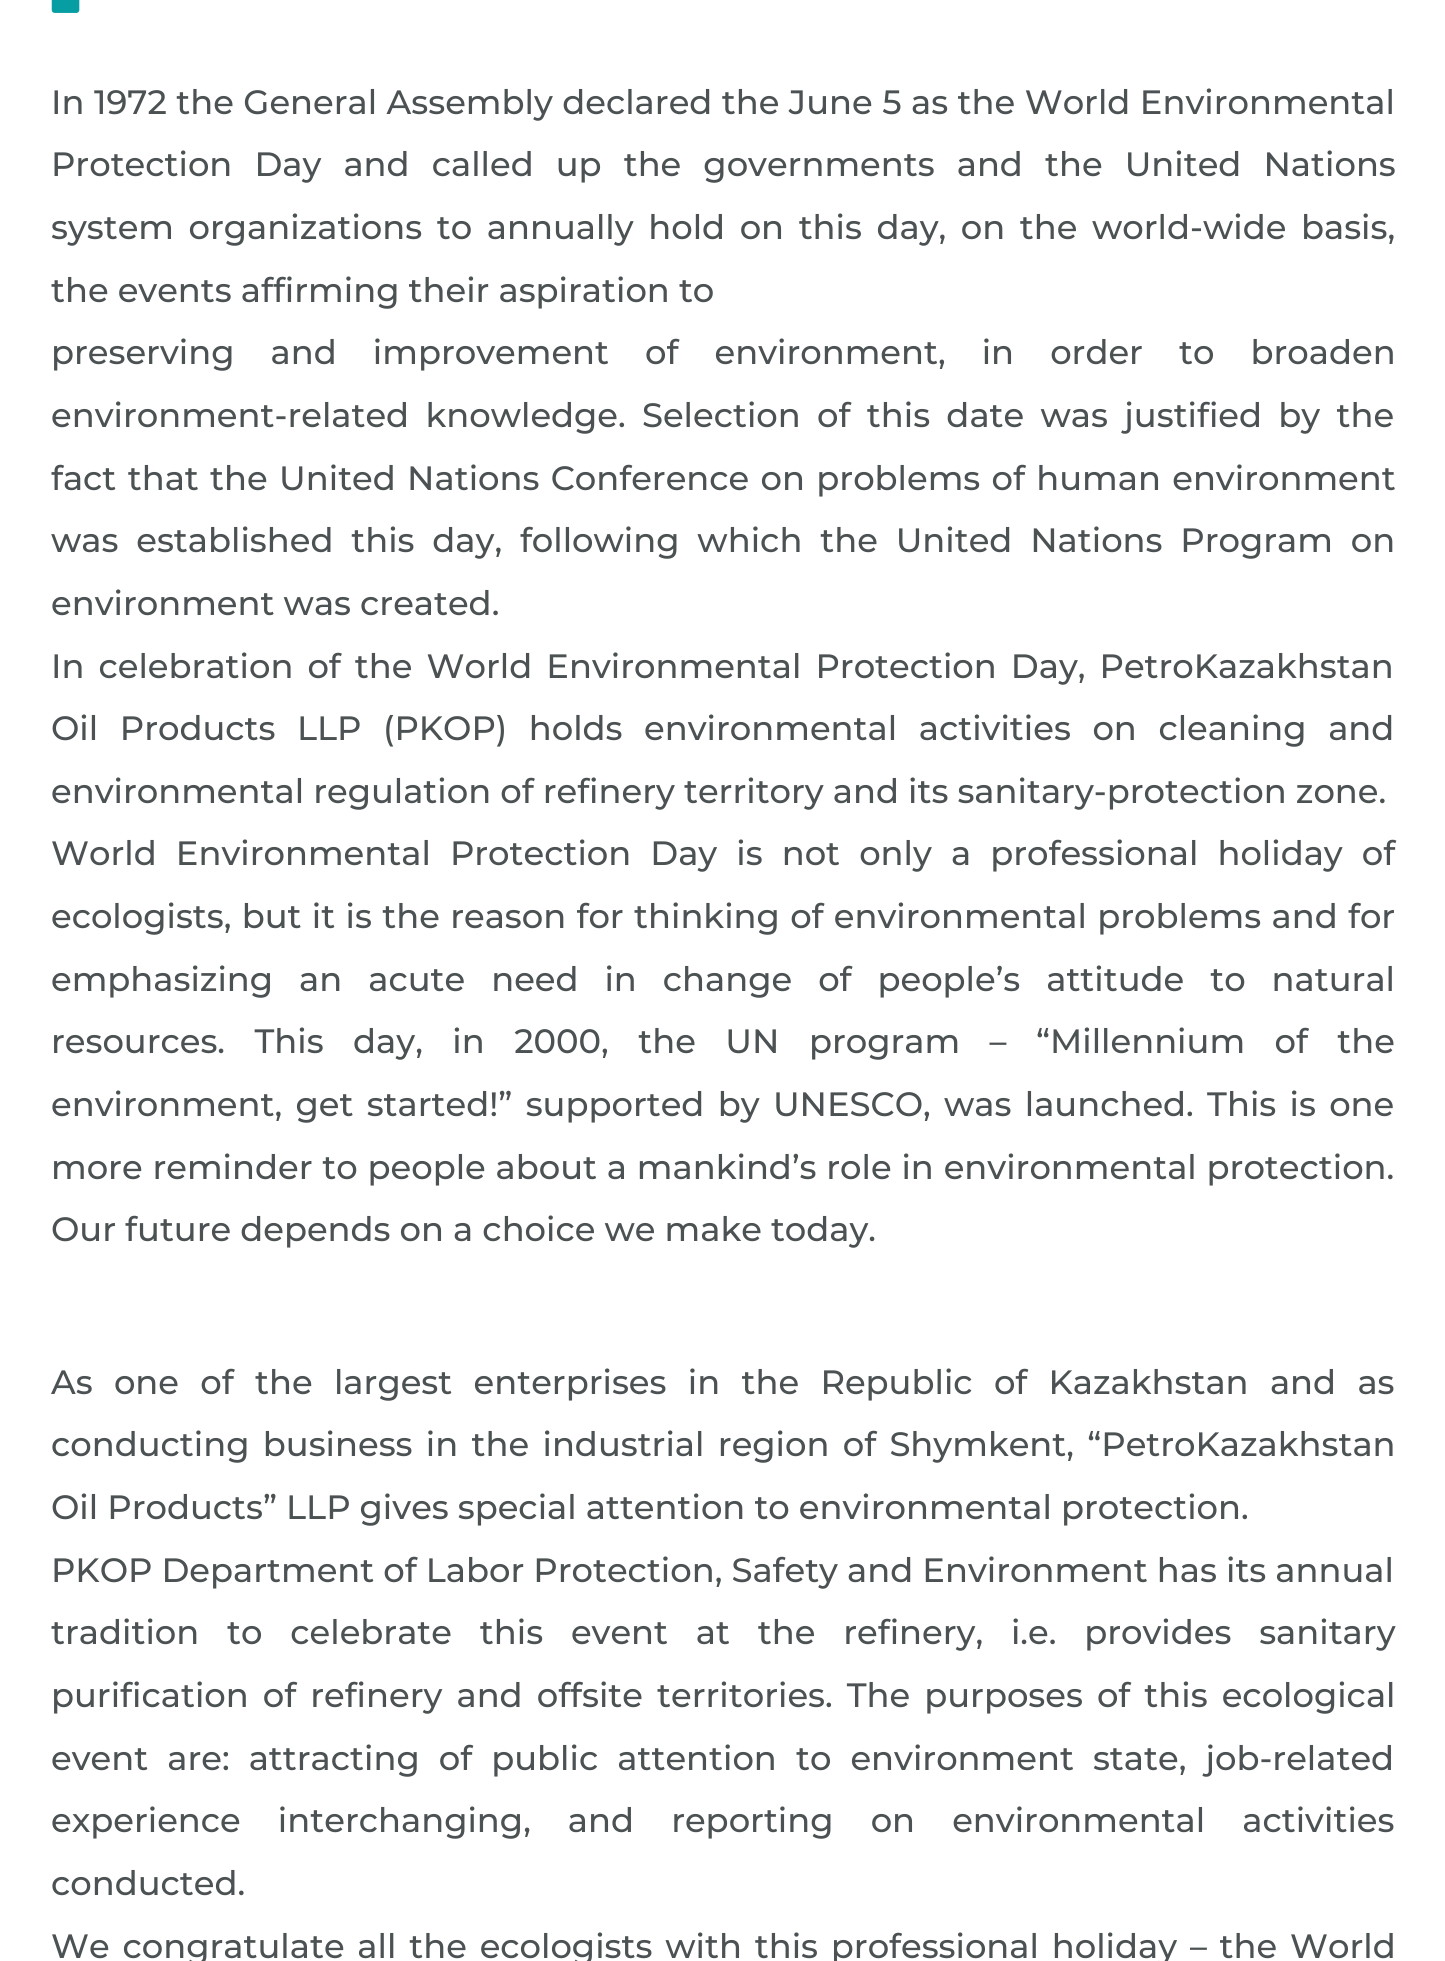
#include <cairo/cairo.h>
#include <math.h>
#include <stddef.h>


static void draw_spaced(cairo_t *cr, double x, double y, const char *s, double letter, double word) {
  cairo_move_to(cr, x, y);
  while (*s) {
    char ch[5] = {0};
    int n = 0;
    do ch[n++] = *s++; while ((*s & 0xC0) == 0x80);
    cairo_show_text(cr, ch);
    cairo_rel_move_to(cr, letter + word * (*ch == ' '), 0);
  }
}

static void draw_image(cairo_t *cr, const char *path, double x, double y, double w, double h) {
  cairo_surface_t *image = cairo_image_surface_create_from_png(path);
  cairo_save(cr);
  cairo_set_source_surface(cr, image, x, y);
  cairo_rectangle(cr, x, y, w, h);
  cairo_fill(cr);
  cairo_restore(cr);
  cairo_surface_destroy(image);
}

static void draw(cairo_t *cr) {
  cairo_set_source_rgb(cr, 1, 1, 1);
  cairo_paint(cr);
  draw_image(cr, "images/1.png", 51, 0, 29, 13);
  cairo_select_font_face(cr, "Montserrat Medium", CAIRO_FONT_SLANT_NORMAL, CAIRO_FONT_WEIGHT_NORMAL);
  cairo_set_font_size(cr, 33.75);
  cairo_set_source_rgb(cr, 76 / 255.0, 82 / 255.0, 83 / 255.0);
  draw_spaced(cr, 51, 114, "In 1972 the General Assembly declared the June 5 as the World Environmental", 0, 0.4);
  draw_spaced(cr, 51, 176, "Protection Day and called up the governments and the United Nations", 0, 13);
  draw_spaced(cr, 51, 239, "system organizations to annually hold on this day, on the world-wide basis,", 0, 5.5);
  cairo_move_to(cr, 51, 302);
  cairo_show_text(cr, "the events affirming their aspiration to");
  draw_spaced(cr, 51, 364, "preserving and improvement of environment, in order to broaden", 0, 27);
  draw_spaced(cr, 51, 427, "environment-related knowledge. Selection of this date was justified by the", 0, 7.25);
  draw_spaced(cr, 51, 490, "fact that the United Nations Conference on problems of human environment", 0, 2.25);
  draw_spaced(cr, 51, 552, "was established this day, following which the United Nations Program on", 0, 8.75);
  cairo_move_to(cr, 51, 615);
  cairo_show_text(cr, "environment was created.");
  draw_spaced(cr, 51, 678, "In celebration of the World Environmental Protection Day, PetroKazakhstan", 0, 5);
  draw_spaced(cr, 51, 740, "Oil Products LLP (PKOP) holds environmental activities on cleaning and", 0, 12.5);
  cairo_move_to(cr, 51, 803);
  cairo_show_text(cr, "environmental regulation of refinery territory and its sanitary-protection zone.");
  draw_spaced(cr, 51, 865, "World Environmental Protection Day is not only a professional holiday of", 0, 10);
  draw_spaced(cr, 51, 928, "ecologists, but it is the reason for thinking of environmental problems and for", 0, 1.25);
  draw_spaced(cr, 51, 991, "emphasizing an acute need in change of people’s attitude to natural", 0, 16.9);
  draw_spaced(cr, 51, 1053, "resources. This day, in 2000, the UN program – “Millennium of the", 0, 20.4);
  draw_spaced(cr, 51, 1116, "environment, get started!” supported by UNESCO, was launched. This is one", 0, 4.25);
  draw_spaced(cr, 51, 1179, "more reminder to people about a mankind’s role in environmental protection.", 0, 0.75);
  cairo_move_to(cr, 51, 1241);
  cairo_show_text(cr, "Our future depends on a choice we make today.");
  draw_spaced(cr, 51, 1394, "As one of the largest enterprises in the Republic of Kazakhstan and as", 0, 12.25);
  draw_spaced(cr, 51, 1456, "conducting business in the industrial region of Shymkent, “PetroKazakhstan", 0, 4.25);
  cairo_move_to(cr, 51, 1519);
  cairo_show_text(cr, "Oil Products” LLP gives special attention to environmental protection.");
  cairo_move_to(cr, 51, 1582);
  cairo_show_text(cr, "PKOP Department of Labor Protection, Safety and Environment has its annual");
  draw_spaced(cr, 51, 1644, "tradition to celebrate this event at the refinery, i.e. provides sanitary", 0, 18.75);
  draw_spaced(cr, 51, 1707, "purification of refinery and offsite territories. The purposes of this ecological", 0, 5);
  draw_spaced(cr, 51, 1770, "event are: attracting of public attention to environment state, job-related", 0, 10);
  draw_spaced(cr, 51, 1832, "experience interchanging, and reporting on environmental activities", 0, 28);
  cairo_move_to(cr, 51, 1895);
  cairo_show_text(cr, "conducted.");
  draw_spaced(cr, 51, 1958, "We congratulate all the ecologists with this professional holiday – the World", 0, 3.75);
}

int main(void) {
  cairo_surface_t *surface = cairo_image_surface_create(CAIRO_FORMAT_RGB24, 1445, 1961);
  cairo_t *cr = cairo_create(surface);
  cairo_font_options_t *options = cairo_font_options_create();
  cairo_font_options_set_hint_metrics(options, CAIRO_HINT_METRICS_OFF);
  cairo_font_options_set_hint_style(options, CAIRO_HINT_STYLE_NONE);
  cairo_set_font_options(cr, options);
  cairo_set_miter_limit(cr, 4);
  draw(cr);
  cairo_surface_write_to_png(surface, "out.png");
  cairo_font_options_destroy(options);
  cairo_destroy(cr);
  cairo_surface_destroy(surface);
  return 0;
}
